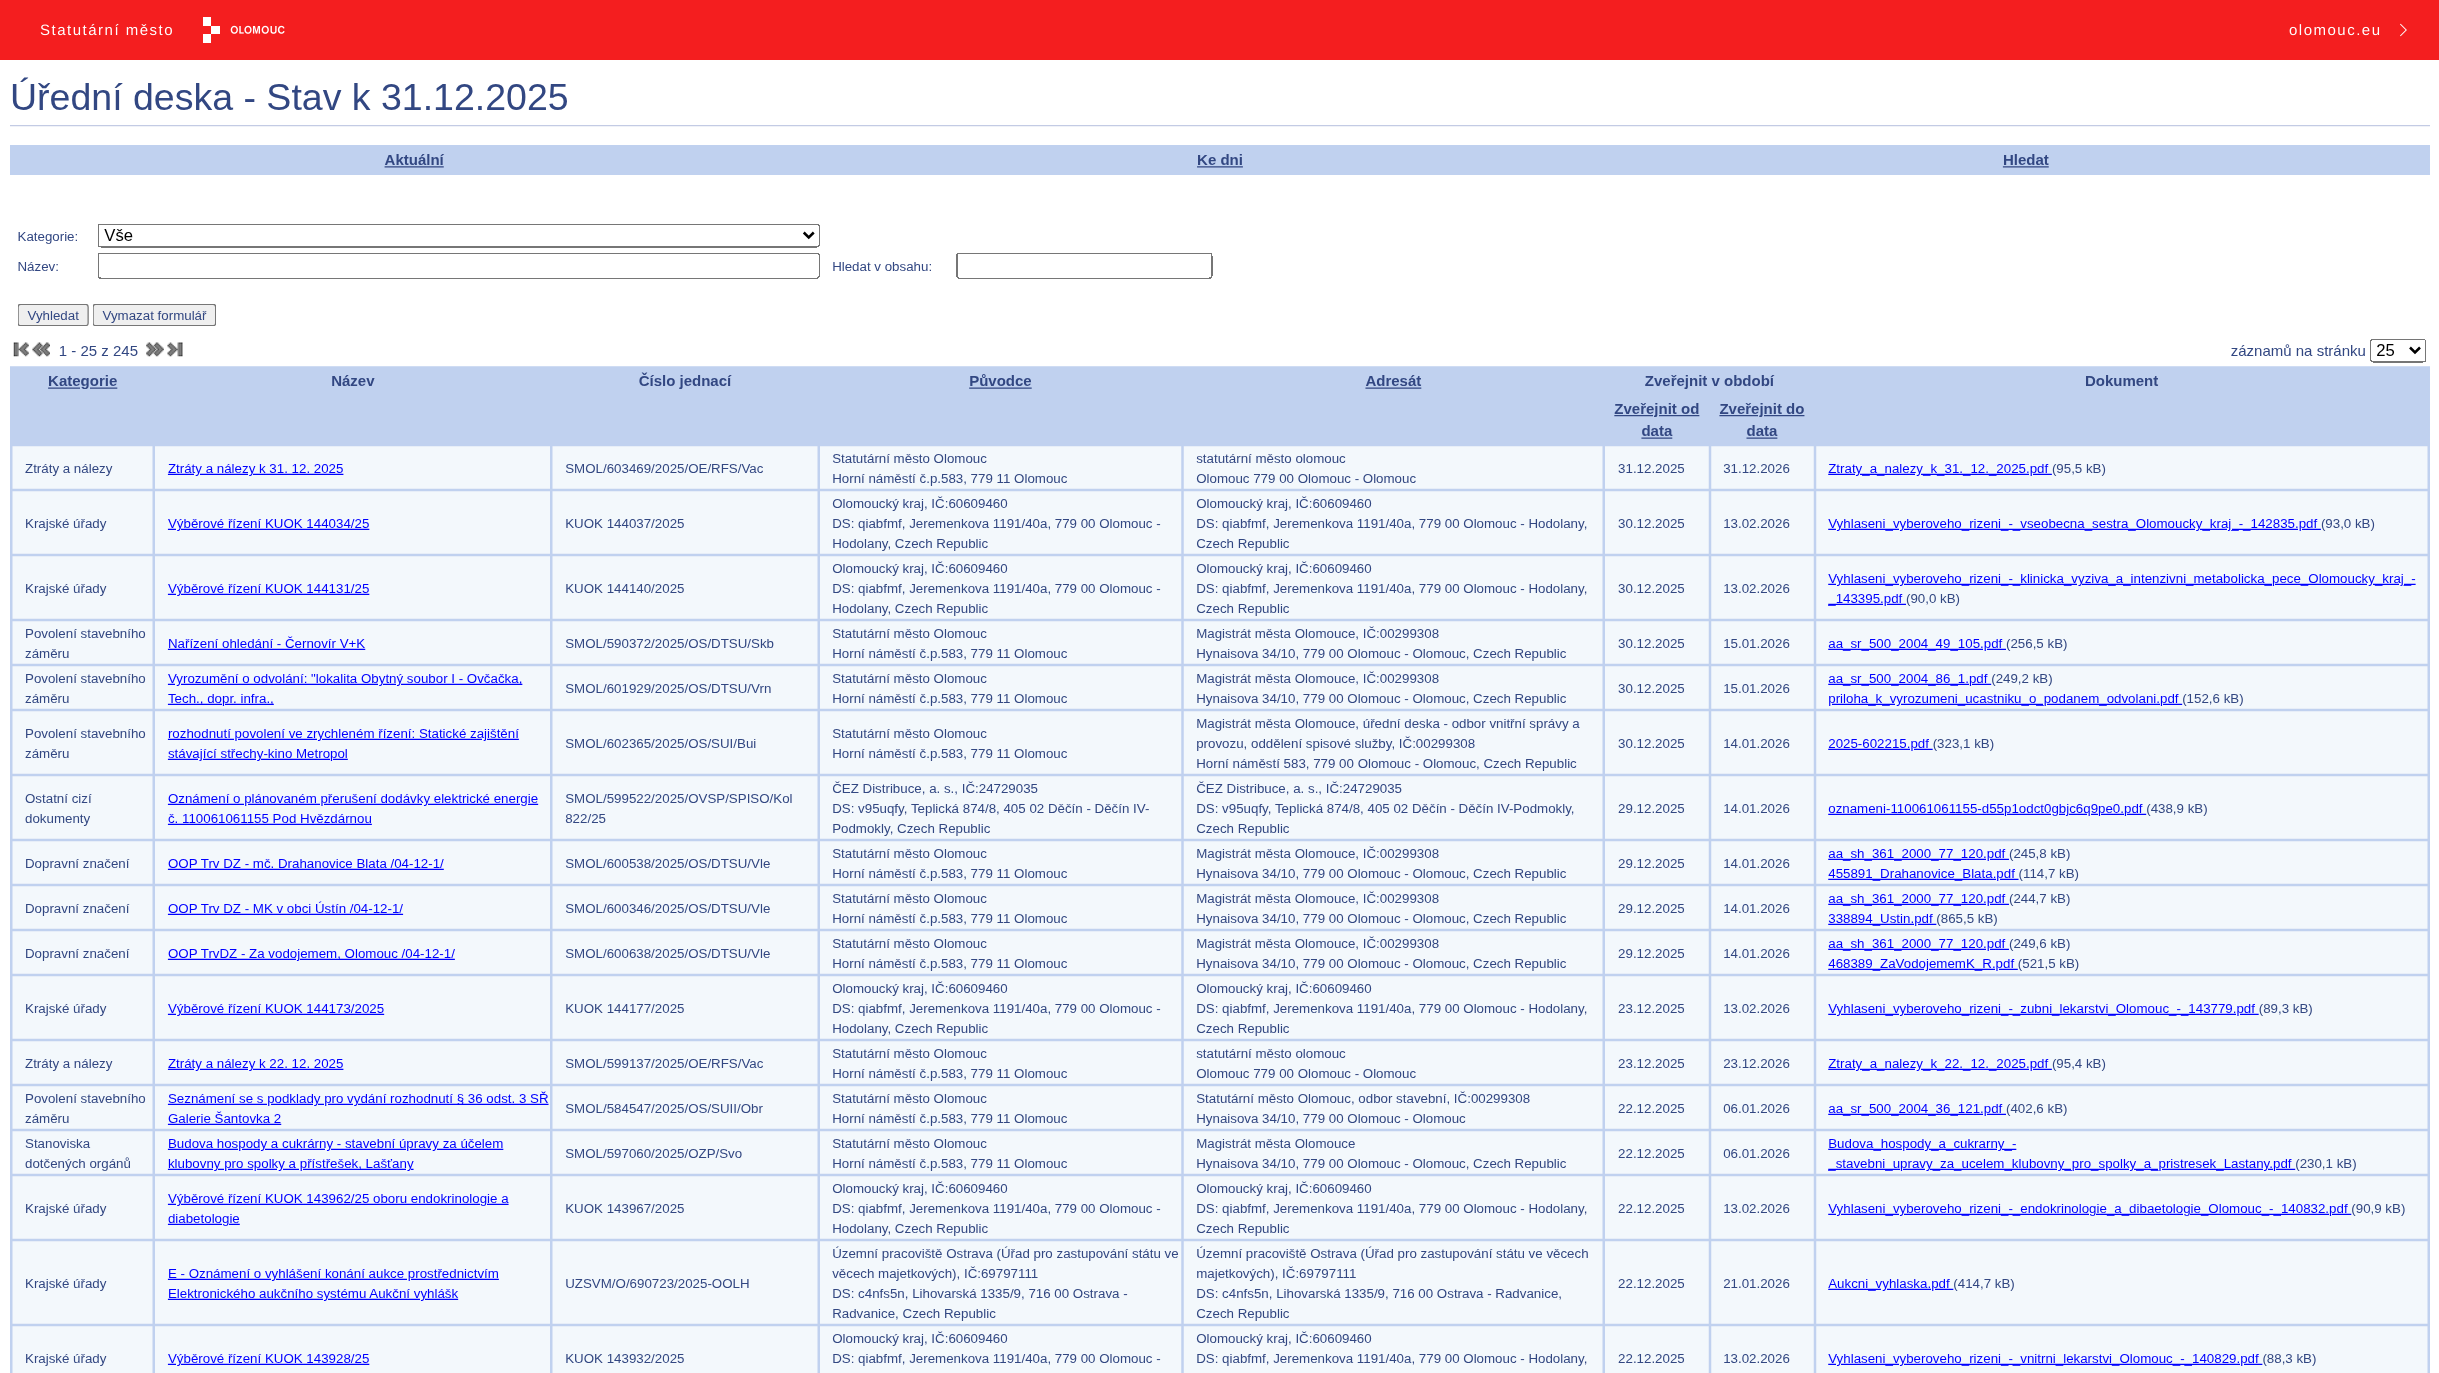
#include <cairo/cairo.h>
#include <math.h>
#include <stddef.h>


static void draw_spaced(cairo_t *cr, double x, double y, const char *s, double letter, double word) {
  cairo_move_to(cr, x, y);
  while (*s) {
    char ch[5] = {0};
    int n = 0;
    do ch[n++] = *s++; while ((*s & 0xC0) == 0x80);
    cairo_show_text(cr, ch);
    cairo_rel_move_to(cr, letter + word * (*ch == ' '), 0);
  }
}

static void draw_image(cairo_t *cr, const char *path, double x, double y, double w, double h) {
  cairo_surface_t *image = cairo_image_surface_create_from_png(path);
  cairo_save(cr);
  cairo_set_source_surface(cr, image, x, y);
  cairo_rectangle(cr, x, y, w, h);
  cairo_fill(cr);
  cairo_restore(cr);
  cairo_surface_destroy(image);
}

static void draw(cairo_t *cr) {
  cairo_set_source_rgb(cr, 1, 1, 1);
  cairo_paint(cr);
  cairo_set_source_rgb(cr, 244 / 255.0, 30 / 255.0, 31 / 255.0);
  cairo_rectangle(cr, 0, 0, 2439, 60);
  cairo_fill(cr);
  draw_image(cr, "images/1.png", 203, 17, 82, 26);
  draw_image(cr, "images/2.png", 2400, 23, 7, 14);
  draw_image(cr, "images/3.png", 10, 77, 2420, 1296);
  cairo_select_font_face(cr, "Liberation Sans", CAIRO_FONT_SLANT_NORMAL, CAIRO_FONT_WEIGHT_NORMAL);
  cairo_set_font_size(cr, 15);
  cairo_set_source_rgb(cr, 1, 1, 1);
  draw_spaced(cr, 40, 35, "Statutární město", 1.5, 0);
  draw_spaced(cr, 2289, 35, "olomouc.eu", 1.5, 0);
}

int main(void) {
  cairo_surface_t *surface = cairo_image_surface_create(CAIRO_FORMAT_RGB24, 2439, 1373);
  cairo_t *cr = cairo_create(surface);
  cairo_font_options_t *options = cairo_font_options_create();
  cairo_font_options_set_hint_metrics(options, CAIRO_HINT_METRICS_OFF);
  cairo_font_options_set_hint_style(options, CAIRO_HINT_STYLE_NONE);
  cairo_set_font_options(cr, options);
  cairo_set_miter_limit(cr, 4);
  draw(cr);
  cairo_surface_write_to_png(surface, "out.png");
  cairo_font_options_destroy(options);
  cairo_destroy(cr);
  cairo_surface_destroy(surface);
  return 0;
}
